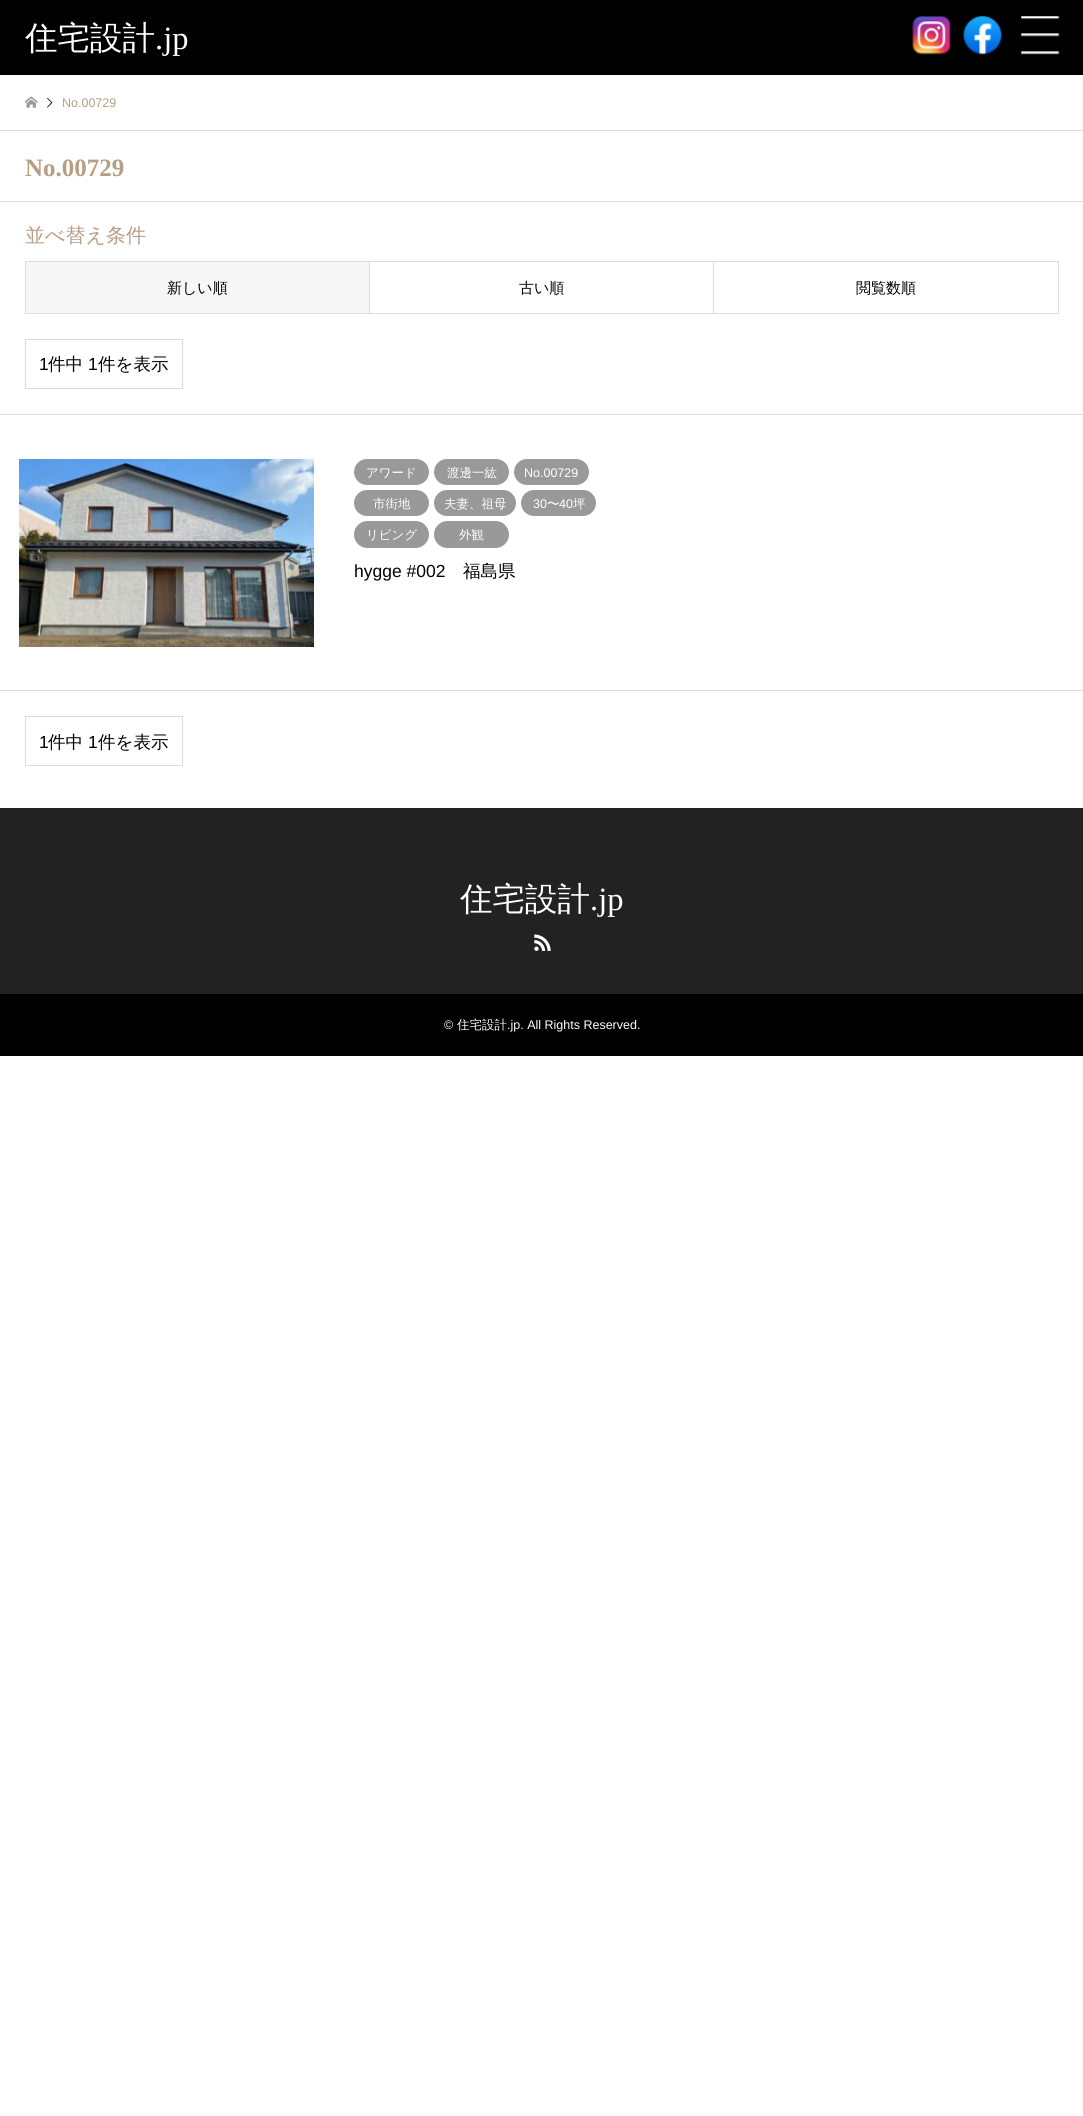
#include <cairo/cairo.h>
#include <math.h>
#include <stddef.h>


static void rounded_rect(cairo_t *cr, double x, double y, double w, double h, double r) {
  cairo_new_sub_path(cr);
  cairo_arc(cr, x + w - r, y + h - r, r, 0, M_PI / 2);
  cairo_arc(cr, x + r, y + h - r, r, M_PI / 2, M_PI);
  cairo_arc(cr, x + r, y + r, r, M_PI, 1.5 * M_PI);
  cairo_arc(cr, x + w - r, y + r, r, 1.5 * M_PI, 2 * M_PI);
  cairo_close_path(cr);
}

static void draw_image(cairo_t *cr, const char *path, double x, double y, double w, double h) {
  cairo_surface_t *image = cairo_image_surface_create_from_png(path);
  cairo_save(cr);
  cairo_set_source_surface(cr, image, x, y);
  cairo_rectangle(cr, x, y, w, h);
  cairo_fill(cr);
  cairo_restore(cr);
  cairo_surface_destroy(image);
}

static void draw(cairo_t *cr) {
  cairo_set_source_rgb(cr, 1, 1, 1);
  cairo_paint(cr);
  cairo_set_source_rgb(cr, 0, 0, 0);
  cairo_rectangle(cr, 0, 0, 1083, 75);
  cairo_fill(cr);
  draw_image(cr, "images/1.png", 912, 16, 39, 39);
  draw_image(cr, "images/2.png", 963, 16, 39, 39);
  draw_image(cr, "images/3.png", 1021, 16, 39, 39);
  cairo_set_source_rgb(cr, 221 / 255.0, 221 / 255.0, 221 / 255.0);
  cairo_rectangle(cr, 0, 130, 1083, 1);
  cairo_fill(cr);
  draw_image(cr, "images/4.png", 25, 96, 13, 12);
  draw_image(cr, "images/5.png", 47, 97, 6, 11);
  cairo_rectangle(cr, 0, 201, 1083, 1);
  cairo_fill(cr);
  cairo_set_source_rgb(cr, 247 / 255.0, 247 / 255.0, 247 / 255.0);
  cairo_rectangle(cr, 25.5, 261.5, 344, 52);
  cairo_fill_preserve(cr);
  cairo_set_source_rgb(cr, 221 / 255.0, 221 / 255.0, 221 / 255.0);
  cairo_set_line_width(cr, 1);
  cairo_stroke(cr);
  cairo_rectangle(cr, 370, 261, 689, 1);
  cairo_fill(cr);
  cairo_rectangle(cr, 713, 261, 1, 53);
  cairo_fill(cr);
  cairo_rectangle(cr, 370, 313, 344, 1);
  cairo_fill(cr);
  cairo_rectangle(cr, 1058, 261, 1, 53);
  cairo_fill(cr);
  cairo_rectangle(cr, 714, 313, 345, 1);
  cairo_fill(cr);
  cairo_rectangle(cr, 25.5, 339.5, 157, 49);
  cairo_stroke(cr);
  cairo_rectangle(cr, 0, 414, 1083, 1);
  cairo_fill(cr);
  cairo_rectangle(cr, 0, 690, 1083, 1);
  cairo_fill(cr);
  draw_image(cr, "images/6.png", 19, 459, 295, 188);
  cairo_set_source_rgb(cr, 153 / 255.0, 153 / 255.0, 153 / 255.0);
  rounded_rect(cr, 354, 459, 75, 26, 13);
  cairo_fill(cr);
  rounded_rect(cr, 434, 459, 75, 26, 13);
  cairo_fill(cr);
  rounded_rect(cr, 514, 459, 75, 26, 13);
  cairo_fill(cr);
  rounded_rect(cr, 354, 490, 75, 26, 13);
  cairo_fill(cr);
  rounded_rect(cr, 434, 490, 82, 26, 13);
  cairo_fill(cr);
  rounded_rect(cr, 521, 490, 75, 26, 13);
  cairo_fill(cr);
  rounded_rect(cr, 354, 521, 75, 27, 13.5);
  cairo_fill(cr);
  rounded_rect(cr, 434, 521, 75, 27, 13.5);
  cairo_fill(cr);
  cairo_rectangle(cr, 25.5, 716.5, 157, 49);
  cairo_set_source_rgb(cr, 221 / 255.0, 221 / 255.0, 221 / 255.0);
  cairo_stroke(cr);
  cairo_set_source_rgb(cr, 34 / 255.0, 34 / 255.0, 34 / 255.0);
  cairo_rectangle(cr, 0, 808, 1083, 186);
  cairo_fill(cr);
  draw_image(cr, "images/7.png", 534, 934, 17, 17);
  cairo_set_source_rgb(cr, 0, 0, 0);
  cairo_rectangle(cr, 0, 994, 1083, 62);
  cairo_fill(cr);
  cairo_select_font_face(cr, "WenQuanYi Zen Hei Medium", CAIRO_FONT_SLANT_NORMAL, CAIRO_FONT_WEIGHT_NORMAL);
  cairo_set_font_size(cr, 32.5);
  cairo_set_source_rgb(cr, 1, 1, 1);
  cairo_move_to(cr, 25, 49);
  cairo_show_text(cr, "住宅設計");
  cairo_select_font_face(cr, "Liberation Serif", CAIRO_FONT_SLANT_NORMAL, CAIRO_FONT_WEIGHT_NORMAL);
  cairo_move_to(cr, 155, 49);
  cairo_show_text(cr, ".jp");
  cairo_select_font_face(cr, "Liberation Sans", CAIRO_FONT_SLANT_NORMAL, CAIRO_FONT_WEIGHT_NORMAL);
  cairo_set_font_size(cr, 12.5);
  cairo_set_source_rgb(cr, 182 / 255.0, 158 / 255.0, 132 / 255.0);
  cairo_move_to(cr, 62, 107);
  cairo_show_text(cr, "No.00729");
  cairo_select_font_face(cr, "Liberation Serif", CAIRO_FONT_SLANT_NORMAL, CAIRO_FONT_WEIGHT_BOLD);
  cairo_set_font_size(cr, 25);
  cairo_move_to(cr, 25, 176);
  cairo_show_text(cr, "No.00729");
  cairo_select_font_face(cr, "WenQuanYi Zen Hei Medium", CAIRO_FONT_SLANT_NORMAL, CAIRO_FONT_WEIGHT_NORMAL);
  cairo_set_font_size(cr, 20);
  cairo_move_to(cr, 25, 242);
  cairo_show_text(cr, "並べ替え条件");
  cairo_set_font_size(cr, 15);
  cairo_set_source_rgb(cr, 0, 0, 0);
  cairo_move_to(cr, 167, 293);
  cairo_show_text(cr, "新しい順");
  cairo_move_to(cr, 519, 293);
  cairo_show_text(cr, "古い順");
  cairo_move_to(cr, 856, 293);
  cairo_show_text(cr, "閲覧数順");
  cairo_select_font_face(cr, "Liberation Sans", CAIRO_FONT_SLANT_NORMAL, CAIRO_FONT_WEIGHT_NORMAL);
  cairo_set_font_size(cr, 17.5);
  cairo_move_to(cr, 39, 370);
  cairo_show_text(cr, "1");
  cairo_select_font_face(cr, "WenQuanYi Zen Hei Medium", CAIRO_FONT_SLANT_NORMAL, CAIRO_FONT_WEIGHT_NORMAL);
  cairo_move_to(cr, 48, 370);
  cairo_show_text(cr, "件中");
  cairo_select_font_face(cr, "Liberation Sans", CAIRO_FONT_SLANT_NORMAL, CAIRO_FONT_WEIGHT_NORMAL);
  cairo_move_to(cr, 88, 370);
  cairo_show_text(cr, "1");
  cairo_select_font_face(cr, "WenQuanYi Zen Hei Medium", CAIRO_FONT_SLANT_NORMAL, CAIRO_FONT_WEIGHT_NORMAL);
  cairo_move_to(cr, 98, 370);
  cairo_show_text(cr, "件を表示");
  cairo_set_font_size(cr, 12.5);
  cairo_set_source_rgb(cr, 1, 1, 1);
  cairo_move_to(cr, 366, 477);
  cairo_show_text(cr, "アワード");
  cairo_move_to(cr, 447, 477);
  cairo_show_text(cr, "渡邊一紘");
  cairo_select_font_face(cr, "Liberation Sans", CAIRO_FONT_SLANT_NORMAL, CAIRO_FONT_WEIGHT_NORMAL);
  cairo_move_to(cr, 524, 477);
  cairo_show_text(cr, "No.00729");
  cairo_select_font_face(cr, "WenQuanYi Zen Hei Medium", CAIRO_FONT_SLANT_NORMAL, CAIRO_FONT_WEIGHT_NORMAL);
  cairo_move_to(cr, 373, 508);
  cairo_show_text(cr, "市街地");
  cairo_move_to(cr, 444, 508);
  cairo_show_text(cr, "夫妻、祖母");
  cairo_select_font_face(cr, "Liberation Sans", CAIRO_FONT_SLANT_NORMAL, CAIRO_FONT_WEIGHT_NORMAL);
  cairo_move_to(cr, 533, 508);
  cairo_show_text(cr, "30");
  cairo_select_font_face(cr, "WenQuanYi Zen Hei Medium", CAIRO_FONT_SLANT_NORMAL, CAIRO_FONT_WEIGHT_NORMAL);
  cairo_move_to(cr, 547, 508);
  cairo_show_text(cr, "〜");
  cairo_select_font_face(cr, "Liberation Sans", CAIRO_FONT_SLANT_NORMAL, CAIRO_FONT_WEIGHT_NORMAL);
  cairo_move_to(cr, 559, 508);
  cairo_show_text(cr, "40");
  cairo_select_font_face(cr, "WenQuanYi Zen Hei Medium", CAIRO_FONT_SLANT_NORMAL, CAIRO_FONT_WEIGHT_NORMAL);
  cairo_move_to(cr, 573, 508);
  cairo_show_text(cr, "坪");
  cairo_move_to(cr, 366, 539);
  cairo_show_text(cr, "リビング");
  cairo_move_to(cr, 459, 539);
  cairo_show_text(cr, "外観");
  cairo_select_font_face(cr, "Liberation Sans", CAIRO_FONT_SLANT_NORMAL, CAIRO_FONT_WEIGHT_NORMAL);
  cairo_set_font_size(cr, 17.5);
  cairo_set_source_rgb(cr, 0, 0, 0);
  cairo_move_to(cr, 354, 577);
  cairo_show_text(cr, "hygge #002");
  cairo_select_font_face(cr, "WenQuanYi Zen Hei Medium", CAIRO_FONT_SLANT_NORMAL, CAIRO_FONT_WEIGHT_NORMAL);
  cairo_move_to(cr, 463, 577);
  cairo_show_text(cr, "福島県");
  cairo_select_font_face(cr, "Liberation Sans", CAIRO_FONT_SLANT_NORMAL, CAIRO_FONT_WEIGHT_NORMAL);
  cairo_move_to(cr, 39, 748);
  cairo_show_text(cr, "1");
  cairo_select_font_face(cr, "WenQuanYi Zen Hei Medium", CAIRO_FONT_SLANT_NORMAL, CAIRO_FONT_WEIGHT_NORMAL);
  cairo_move_to(cr, 48, 748);
  cairo_show_text(cr, "件中");
  cairo_select_font_face(cr, "Liberation Sans", CAIRO_FONT_SLANT_NORMAL, CAIRO_FONT_WEIGHT_NORMAL);
  cairo_move_to(cr, 88, 748);
  cairo_show_text(cr, "1");
  cairo_select_font_face(cr, "WenQuanYi Zen Hei Medium", CAIRO_FONT_SLANT_NORMAL, CAIRO_FONT_WEIGHT_NORMAL);
  cairo_move_to(cr, 98, 748);
  cairo_show_text(cr, "件を表示");
  cairo_set_font_size(cr, 32.5);
  cairo_set_source_rgb(cr, 1, 1, 1);
  cairo_move_to(cr, 460, 910);
  cairo_show_text(cr, "住宅設計");
  cairo_select_font_face(cr, "Liberation Serif", CAIRO_FONT_SLANT_NORMAL, CAIRO_FONT_WEIGHT_NORMAL);
  cairo_move_to(cr, 590, 910);
  cairo_show_text(cr, ".jp");
  cairo_select_font_face(cr, "Liberation Sans", CAIRO_FONT_SLANT_NORMAL, CAIRO_FONT_WEIGHT_NORMAL);
  cairo_set_font_size(cr, 12.5);
  cairo_move_to(cr, 444, 1029);
  cairo_show_text(cr, "©");
  cairo_select_font_face(cr, "WenQuanYi Zen Hei Medium", CAIRO_FONT_SLANT_NORMAL, CAIRO_FONT_WEIGHT_NORMAL);
  cairo_move_to(cr, 457, 1029);
  cairo_show_text(cr, "住宅設計");
  cairo_select_font_face(cr, "Liberation Sans", CAIRO_FONT_SLANT_NORMAL, CAIRO_FONT_WEIGHT_NORMAL);
  cairo_move_to(cr, 507, 1029);
  cairo_show_text(cr, ".jp. All Rights Reserved.");
}

int main(void) {
  cairo_surface_t *surface = cairo_image_surface_create(CAIRO_FORMAT_RGB24, 1083, 2116);
  cairo_t *cr = cairo_create(surface);
  cairo_font_options_t *options = cairo_font_options_create();
  cairo_font_options_set_hint_metrics(options, CAIRO_HINT_METRICS_OFF);
  cairo_font_options_set_hint_style(options, CAIRO_HINT_STYLE_NONE);
  cairo_set_font_options(cr, options);
  cairo_set_miter_limit(cr, 4);
  draw(cr);
  cairo_surface_write_to_png(surface, "out.png");
  cairo_font_options_destroy(options);
  cairo_destroy(cr);
  cairo_surface_destroy(surface);
  return 0;
}
